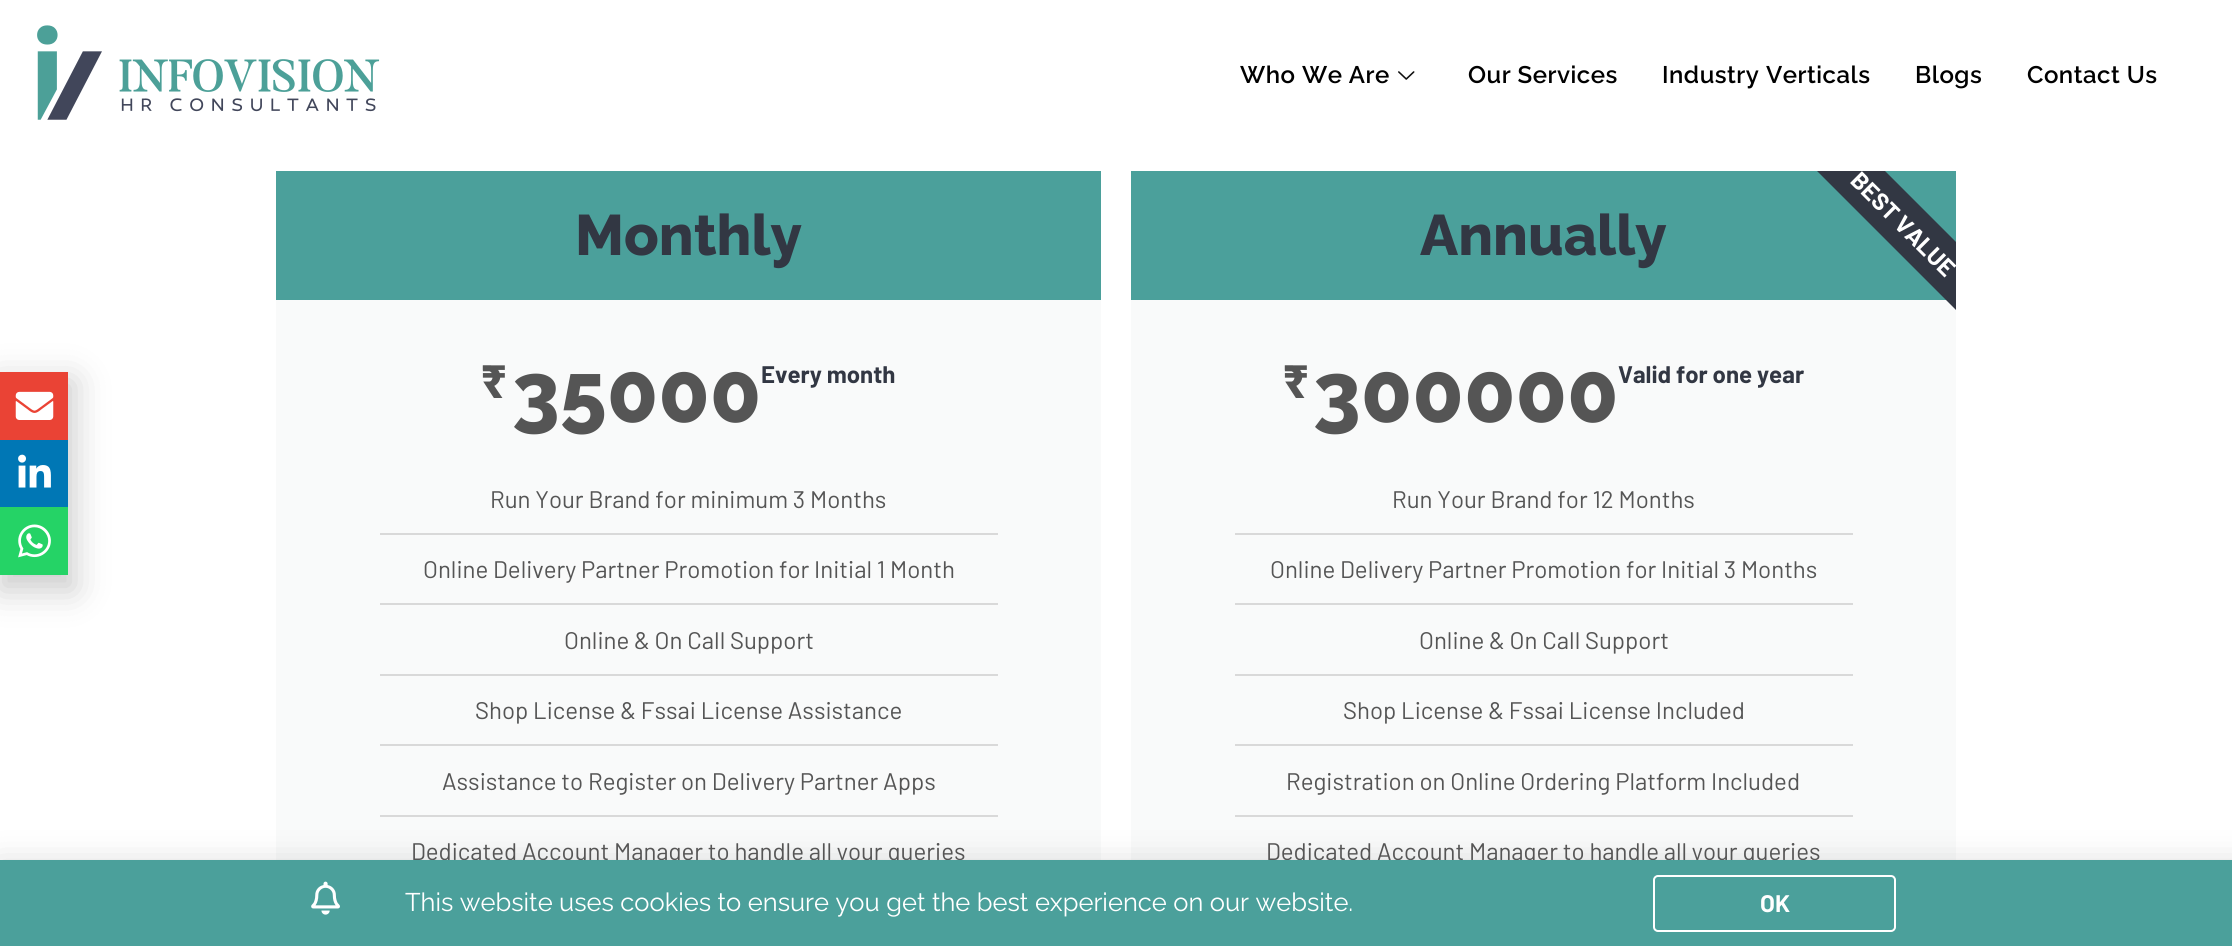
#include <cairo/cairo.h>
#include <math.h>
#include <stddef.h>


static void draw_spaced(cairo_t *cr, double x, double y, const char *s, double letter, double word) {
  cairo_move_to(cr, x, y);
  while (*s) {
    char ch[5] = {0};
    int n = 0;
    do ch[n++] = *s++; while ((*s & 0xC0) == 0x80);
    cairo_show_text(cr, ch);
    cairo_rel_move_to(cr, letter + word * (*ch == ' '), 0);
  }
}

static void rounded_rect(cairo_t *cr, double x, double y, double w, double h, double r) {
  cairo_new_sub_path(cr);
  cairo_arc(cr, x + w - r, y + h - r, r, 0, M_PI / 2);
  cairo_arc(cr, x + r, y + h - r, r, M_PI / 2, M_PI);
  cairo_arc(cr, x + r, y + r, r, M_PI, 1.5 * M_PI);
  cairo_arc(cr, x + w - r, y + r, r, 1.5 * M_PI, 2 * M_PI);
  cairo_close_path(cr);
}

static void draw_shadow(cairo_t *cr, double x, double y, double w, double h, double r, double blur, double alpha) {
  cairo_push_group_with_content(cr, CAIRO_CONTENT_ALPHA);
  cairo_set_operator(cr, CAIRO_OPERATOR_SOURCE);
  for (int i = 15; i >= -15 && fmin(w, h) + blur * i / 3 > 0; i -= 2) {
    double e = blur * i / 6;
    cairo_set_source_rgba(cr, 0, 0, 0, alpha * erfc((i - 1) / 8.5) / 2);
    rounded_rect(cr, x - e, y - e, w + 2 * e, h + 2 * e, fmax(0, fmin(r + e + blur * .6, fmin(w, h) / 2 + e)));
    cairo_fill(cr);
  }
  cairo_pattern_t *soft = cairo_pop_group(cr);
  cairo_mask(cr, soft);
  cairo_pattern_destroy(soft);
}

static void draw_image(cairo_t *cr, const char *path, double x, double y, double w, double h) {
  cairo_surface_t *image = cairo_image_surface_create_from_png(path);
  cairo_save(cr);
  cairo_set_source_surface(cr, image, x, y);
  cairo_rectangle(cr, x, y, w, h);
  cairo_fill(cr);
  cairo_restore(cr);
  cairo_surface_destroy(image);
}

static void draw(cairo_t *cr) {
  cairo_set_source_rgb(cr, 1, 1, 1);
  cairo_paint(cr);
  draw_image(cr, "images/1.png", 37, 25, 343, 95);
  draw_image(cr, "images/2.png", 1398, 71, 17, 9);
  cairo_set_source_rgb(cr, 0, 0, 0);
  draw_shadow(cr, -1, 380, 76, 211, 0, 17, 0.2);
  cairo_set_source_rgb(cr, 234 / 255.0, 67 / 255.0, 53 / 255.0);
  cairo_rectangle(cr, 0, 372, 68, 68);
  cairo_fill(cr);
  draw_image(cr, "images/3.png", 15, 391, 39, 29);
  cairo_set_source_rgb(cr, 0, 119 / 255.0, 181 / 255.0);
  cairo_rectangle(cr, 0, 440, 68, 67);
  cairo_fill(cr);
  draw_image(cr, "images/4.png", 18, 454, 33, 34);
  cairo_set_source_rgb(cr, 37 / 255.0, 211 / 255.0, 102 / 255.0);
  cairo_rectangle(cr, 0, 507, 68, 68);
  cairo_fill(cr);
  draw_image(cr, "images/5.png", 18, 524, 33, 34);
  cairo_set_source_rgb(cr, 249 / 255.0, 250 / 255.0, 250 / 255.0);
  cairo_rectangle(cr, 276, 300, 825, 560);
  cairo_fill(cr);
  cairo_set_source_rgb(cr, 75 / 255.0, 160 / 255.0, 155 / 255.0);
  cairo_rectangle(cr, 276, 171, 825, 129);
  cairo_fill(cr);
  cairo_set_source_rgb(cr, 217 / 255.0, 217 / 255.0, 217 / 255.0);
  cairo_rectangle(cr, 380, 533, 618, 2);
  cairo_fill(cr);
  cairo_rectangle(cr, 380, 603, 618, 2);
  cairo_fill(cr);
  cairo_rectangle(cr, 380, 674, 618, 2);
  cairo_fill(cr);
  cairo_rectangle(cr, 380, 744, 618, 2);
  cairo_fill(cr);
  cairo_rectangle(cr, 380, 815, 618, 2);
  cairo_fill(cr);
  cairo_set_source_rgb(cr, 249 / 255.0, 250 / 255.0, 250 / 255.0);
  cairo_rectangle(cr, 1131, 300, 825, 560);
  cairo_fill(cr);
  cairo_set_source_rgb(cr, 75 / 255.0, 160 / 255.0, 155 / 255.0);
  cairo_rectangle(cr, 1131, 171, 825, 129);
  cairo_fill(cr);
  cairo_set_source_rgb(cr, 217 / 255.0, 217 / 255.0, 217 / 255.0);
  cairo_rectangle(cr, 1235, 533, 618, 2);
  cairo_fill(cr);
  cairo_rectangle(cr, 1235, 603, 618, 2);
  cairo_fill(cr);
  cairo_rectangle(cr, 1235, 674, 618, 2);
  cairo_fill(cr);
  cairo_rectangle(cr, 1235, 744, 618, 2);
  cairo_fill(cr);
  cairo_rectangle(cr, 1235, 815, 618, 2);
  cairo_fill(cr);
  cairo_set_source_rgb(cr, 50 / 255.0, 55 / 255.0, 67 / 255.0);
  cairo_new_path(cr);
  cairo_move_to(cr, 1956, 310);
  cairo_line_to(cr, 1817, 171);
  cairo_line_to(cr, 1885, 171);
  cairo_line_to(cr, 1956, 242);
  cairo_close_path(cr);
  cairo_fill(cr);
  cairo_set_source_rgb(cr, 0, 0, 0);
  draw_shadow(cr, -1, 867, 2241, 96, 0, 17, 0.2);
  cairo_select_font_face(cr, "Raleway SemiBold", CAIRO_FONT_SLANT_NORMAL, CAIRO_FONT_WEIGHT_NORMAL);
  cairo_set_font_size(cr, 24);
  cairo_set_source_rgb(cr, 0, 0, 0);
  draw_spaced(cr, 1240, 83, "Who We Are", 0.5, 0);
  draw_spaced(cr, 1468, 83, "Our Services", 0.5, 0);
  draw_spaced(cr, 1662, 83, "Industry Verticals", 0.5, 0);
  draw_spaced(cr, 1915, 83, "Blogs", 0.5, 0);
  draw_spaced(cr, 2027, 83, "Contact Us", 0.5, 0);
  cairo_select_font_face(cr, "Raleway ExtraBold", CAIRO_FONT_SLANT_NORMAL, CAIRO_FONT_WEIGHT_NORMAL);
  cairo_set_font_size(cr, 57);
  cairo_set_source_rgb(cr, 50 / 255.0, 55 / 255.0, 67 / 255.0);
  cairo_move_to(cr, 575, 255);
  cairo_show_text(cr, "Monthly");
  cairo_set_font_size(cr, 46);
  cairo_set_source_rgb(cr, 85 / 255.0, 85 / 255.0, 85 / 255.0);
  cairo_move_to(cr, 481, 398);
  cairo_show_text(cr, "₹");
  cairo_set_font_size(cr, 84);
  cairo_move_to(cr, 512, 422);
  cairo_show_text(cr, "35000");
  cairo_select_font_face(cr, "Barlow", CAIRO_FONT_SLANT_NORMAL, CAIRO_FONT_WEIGHT_BOLD);
  cairo_set_font_size(cr, 24);
  cairo_set_source_rgb(cr, 50 / 255.0, 55 / 255.0, 67 / 255.0);
  cairo_move_to(cr, 761, 383);
  cairo_show_text(cr, "Every month");
  cairo_select_font_face(cr, "Barlow", CAIRO_FONT_SLANT_NORMAL, CAIRO_FONT_WEIGHT_NORMAL);
  cairo_set_source_rgb(cr, 85 / 255.0, 85 / 255.0, 85 / 255.0);
  cairo_move_to(cr, 490, 508);
  cairo_show_text(cr, "Run Your Brand for minimum 3 Months");
  cairo_move_to(cr, 423, 578);
  cairo_show_text(cr, "Online Delivery Partner Promotion for Initial 1 Month");
  cairo_move_to(cr, 564, 649);
  cairo_show_text(cr, "Online & On Call Support");
  cairo_move_to(cr, 475, 719);
  cairo_show_text(cr, "Shop License & Fssai License Assistance");
  cairo_move_to(cr, 442, 790);
  cairo_show_text(cr, "Assistance to Register on Delivery Partner Apps");
  cairo_move_to(cr, 411, 860);
  cairo_show_text(cr, "Dedicated Account Manager to handle all your queries");
  cairo_select_font_face(cr, "Raleway ExtraBold", CAIRO_FONT_SLANT_NORMAL, CAIRO_FONT_WEIGHT_NORMAL);
  cairo_set_font_size(cr, 57);
  cairo_set_source_rgb(cr, 50 / 255.0, 55 / 255.0, 67 / 255.0);
  cairo_move_to(cr, 1420, 255);
  cairo_show_text(cr, "Annually");
  cairo_set_font_size(cr, 46);
  cairo_set_source_rgb(cr, 85 / 255.0, 85 / 255.0, 85 / 255.0);
  cairo_move_to(cr, 1283, 398);
  cairo_show_text(cr, "₹");
  cairo_set_font_size(cr, 84);
  cairo_move_to(cr, 1313, 422);
  cairo_show_text(cr, "300000");
  cairo_select_font_face(cr, "Barlow", CAIRO_FONT_SLANT_NORMAL, CAIRO_FONT_WEIGHT_BOLD);
  cairo_set_font_size(cr, 24);
  cairo_set_source_rgb(cr, 50 / 255.0, 55 / 255.0, 67 / 255.0);
  cairo_move_to(cr, 1618, 383);
  cairo_show_text(cr, "Valid for one year");
  cairo_select_font_face(cr, "Barlow", CAIRO_FONT_SLANT_NORMAL, CAIRO_FONT_WEIGHT_NORMAL);
  cairo_set_source_rgb(cr, 85 / 255.0, 85 / 255.0, 85 / 255.0);
  cairo_move_to(cr, 1392, 508);
  cairo_show_text(cr, "Run Your Brand for 12 Months");
  cairo_move_to(cr, 1270, 578);
  cairo_show_text(cr, "Online Delivery Partner Promotion for Initial 3 Months");
  cairo_move_to(cr, 1419, 649);
  cairo_show_text(cr, "Online & On Call Support");
  cairo_move_to(cr, 1343, 719);
  cairo_show_text(cr, "Shop License & Fssai License Included");
  cairo_move_to(cr, 1286, 790);
  cairo_show_text(cr, "Registration on Online Ordering Platform Included");
  cairo_move_to(cr, 1266, 860);
  cairo_show_text(cr, "Dedicated Account Manager to handle all your queries");
  cairo_select_font_face(cr, "Barlow", CAIRO_FONT_SLANT_NORMAL, CAIRO_FONT_WEIGHT_BOLD);
  cairo_set_source_rgb(cr, 1, 1, 1);
  cairo_save(cr);
  cairo_translate(cr, 1849, 182);
  cairo_rotate(cr, 45 * M_PI / 180);
  cairo_move_to(cr, 0, 0);
  cairo_show_text(cr, "BEST VALUE");
  cairo_restore(cr);
  cairo_set_source_rgb(cr, 75 / 255.0, 160 / 255.0, 155 / 255.0);
  cairo_rectangle(cr, 0, 860, 2232, 86);
  cairo_fill(cr);
  draw_image(cr, "images/6.png", 311, 881, 29, 34);
  cairo_select_font_face(cr, "Raleway", CAIRO_FONT_SLANT_NORMAL, CAIRO_FONT_WEIGHT_NORMAL);
  cairo_set_font_size(cr, 25.5);
  cairo_set_source_rgb(cr, 1, 1, 1);
  cairo_move_to(cr, 405, 911);
  cairo_show_text(cr, "This website uses cookies to ensure you get the best experience on our website.");
  rounded_rect(cr, 1654, 876, 241, 55, 4);
  cairo_stroke(cr);
  cairo_select_font_face(cr, "Barlow", CAIRO_FONT_SLANT_NORMAL, CAIRO_FONT_WEIGHT_BOLD);
  cairo_set_font_size(cr, 24);
  cairo_move_to(cr, 1760, 912);
  cairo_show_text(cr, "OK");
}

int main(void) {
  cairo_surface_t *surface = cairo_image_surface_create(CAIRO_FORMAT_RGB24, 2232, 946);
  cairo_t *cr = cairo_create(surface);
  cairo_font_options_t *options = cairo_font_options_create();
  cairo_font_options_set_hint_metrics(options, CAIRO_HINT_METRICS_OFF);
  cairo_font_options_set_hint_style(options, CAIRO_HINT_STYLE_NONE);
  cairo_set_font_options(cr, options);
  cairo_set_miter_limit(cr, 4);
  draw(cr);
  cairo_surface_write_to_png(surface, "out.png");
  cairo_font_options_destroy(options);
  cairo_destroy(cr);
  cairo_surface_destroy(surface);
  return 0;
}
